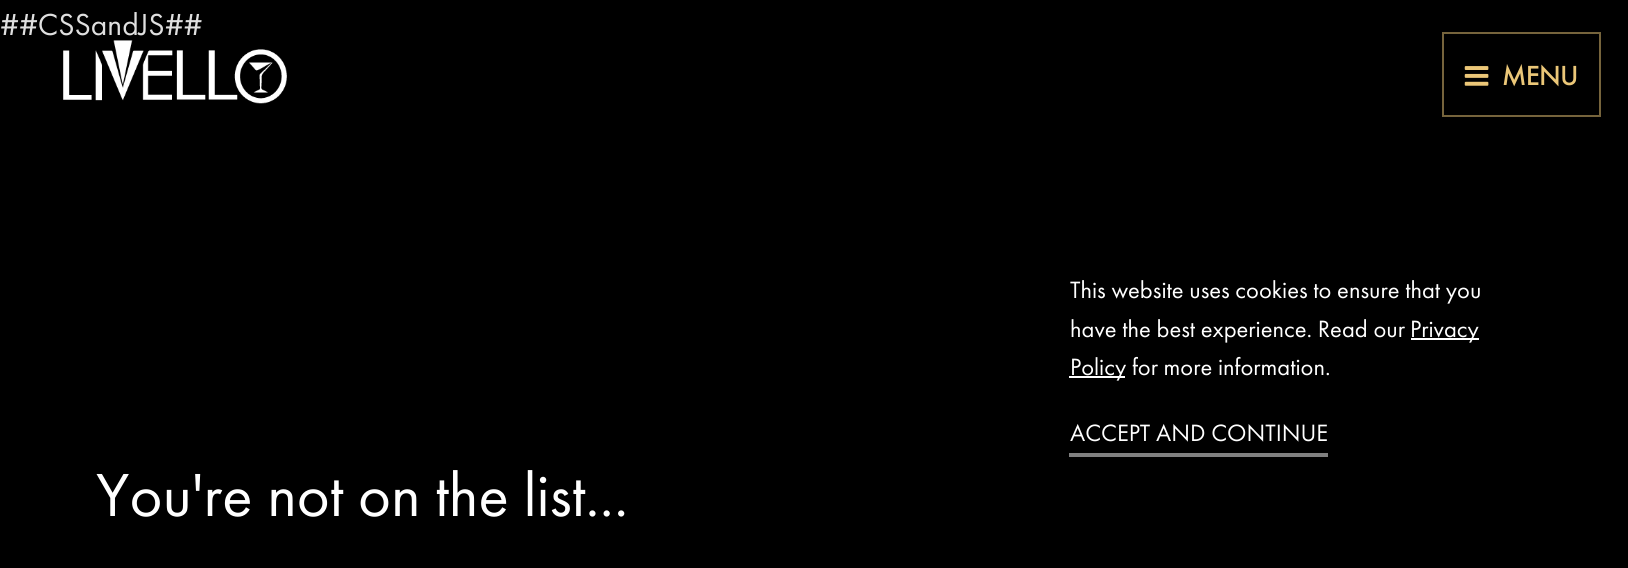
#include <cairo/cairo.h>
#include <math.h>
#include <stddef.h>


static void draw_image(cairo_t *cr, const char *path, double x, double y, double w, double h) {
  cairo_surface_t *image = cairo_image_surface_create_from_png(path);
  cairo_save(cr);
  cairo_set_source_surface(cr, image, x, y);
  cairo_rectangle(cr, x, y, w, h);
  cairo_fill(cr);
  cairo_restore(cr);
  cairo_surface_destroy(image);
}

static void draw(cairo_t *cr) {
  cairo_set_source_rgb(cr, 0, 0, 0);
  cairo_paint(cr);
  draw_image(cr, "images/1.png", 63, 40, 224, 64);
  cairo_rectangle(cr, 1443, 33, 157, 83);
  cairo_set_source_rgb(cr, 118 / 255.0, 100 / 255.0, 60 / 255.0);
  cairo_stroke(cr);
  draw_image(cr, "images/2.png", 1464, 66, 25, 20);
  cairo_set_source_rgb(cr, 1, 1, 1);
  cairo_rectangle(cr, 1411, 338, 68, 2);
  cairo_fill(cr);
  cairo_rectangle(cr, 1069, 376, 56, 2);
  cairo_fill(cr);
  cairo_set_source_rgb(cr, 128 / 255.0, 128 / 255.0, 128 / 255.0);
  cairo_rectangle(cr, 1069, 453, 259, 4);
  cairo_fill(cr);
  cairo_select_font_face(cr, "Futura PT", CAIRO_FONT_SLANT_NORMAL, CAIRO_FONT_WEIGHT_NORMAL);
  cairo_set_font_size(cr, 31.5);
  cairo_set_source_rgb(cr, 223 / 255.0, 223 / 255.0, 223 / 255.0);
  cairo_move_to(cr, 0, 35);
  cairo_show_text(cr, "##CSSandJS##");
  cairo_select_font_face(cr, "Futura PT", CAIRO_FONT_SLANT_NORMAL, CAIRO_FONT_WEIGHT_BOLD);
  cairo_set_font_size(cr, 27.5);
  cairo_set_source_rgb(cr, 235 / 255.0, 199 / 255.0, 120 / 255.0);
  cairo_move_to(cr, 1502, 85);
  cairo_show_text(cr, "MENU");
  cairo_select_font_face(cr, "Futura PT", CAIRO_FONT_SLANT_NORMAL, CAIRO_FONT_WEIGHT_NORMAL);
  cairo_set_font_size(cr, 24.5);
  cairo_set_source_rgb(cr, 1, 1, 1);
  cairo_move_to(cr, 1070, 298);
  cairo_show_text(cr, "This website uses cookies to ensure that you");
  cairo_move_to(cr, 1070, 337);
  cairo_show_text(cr, "have the best experience. Read our");
  cairo_move_to(cr, 1410, 337);
  cairo_show_text(cr, "Privacy");
  cairo_move_to(cr, 1070, 375);
  cairo_show_text(cr, "Policy for more information.");
  cairo_move_to(cr, 1070, 441);
  cairo_show_text(cr, "ACCEPT AND CONTINUE");
  cairo_set_font_size(cr, 63);
  cairo_move_to(cr, 96, 516);
  cairo_show_text(cr, "You're not on the list...");
}

int main(void) {
  cairo_surface_t *surface = cairo_image_surface_create(CAIRO_FORMAT_RGB24, 1628, 568);
  cairo_t *cr = cairo_create(surface);
  cairo_font_options_t *options = cairo_font_options_create();
  cairo_font_options_set_hint_metrics(options, CAIRO_HINT_METRICS_OFF);
  cairo_font_options_set_hint_style(options, CAIRO_HINT_STYLE_NONE);
  cairo_set_font_options(cr, options);
  cairo_set_miter_limit(cr, 4);
  draw(cr);
  cairo_surface_write_to_png(surface, "out.png");
  cairo_font_options_destroy(options);
  cairo_destroy(cr);
  cairo_surface_destroy(surface);
  return 0;
}
